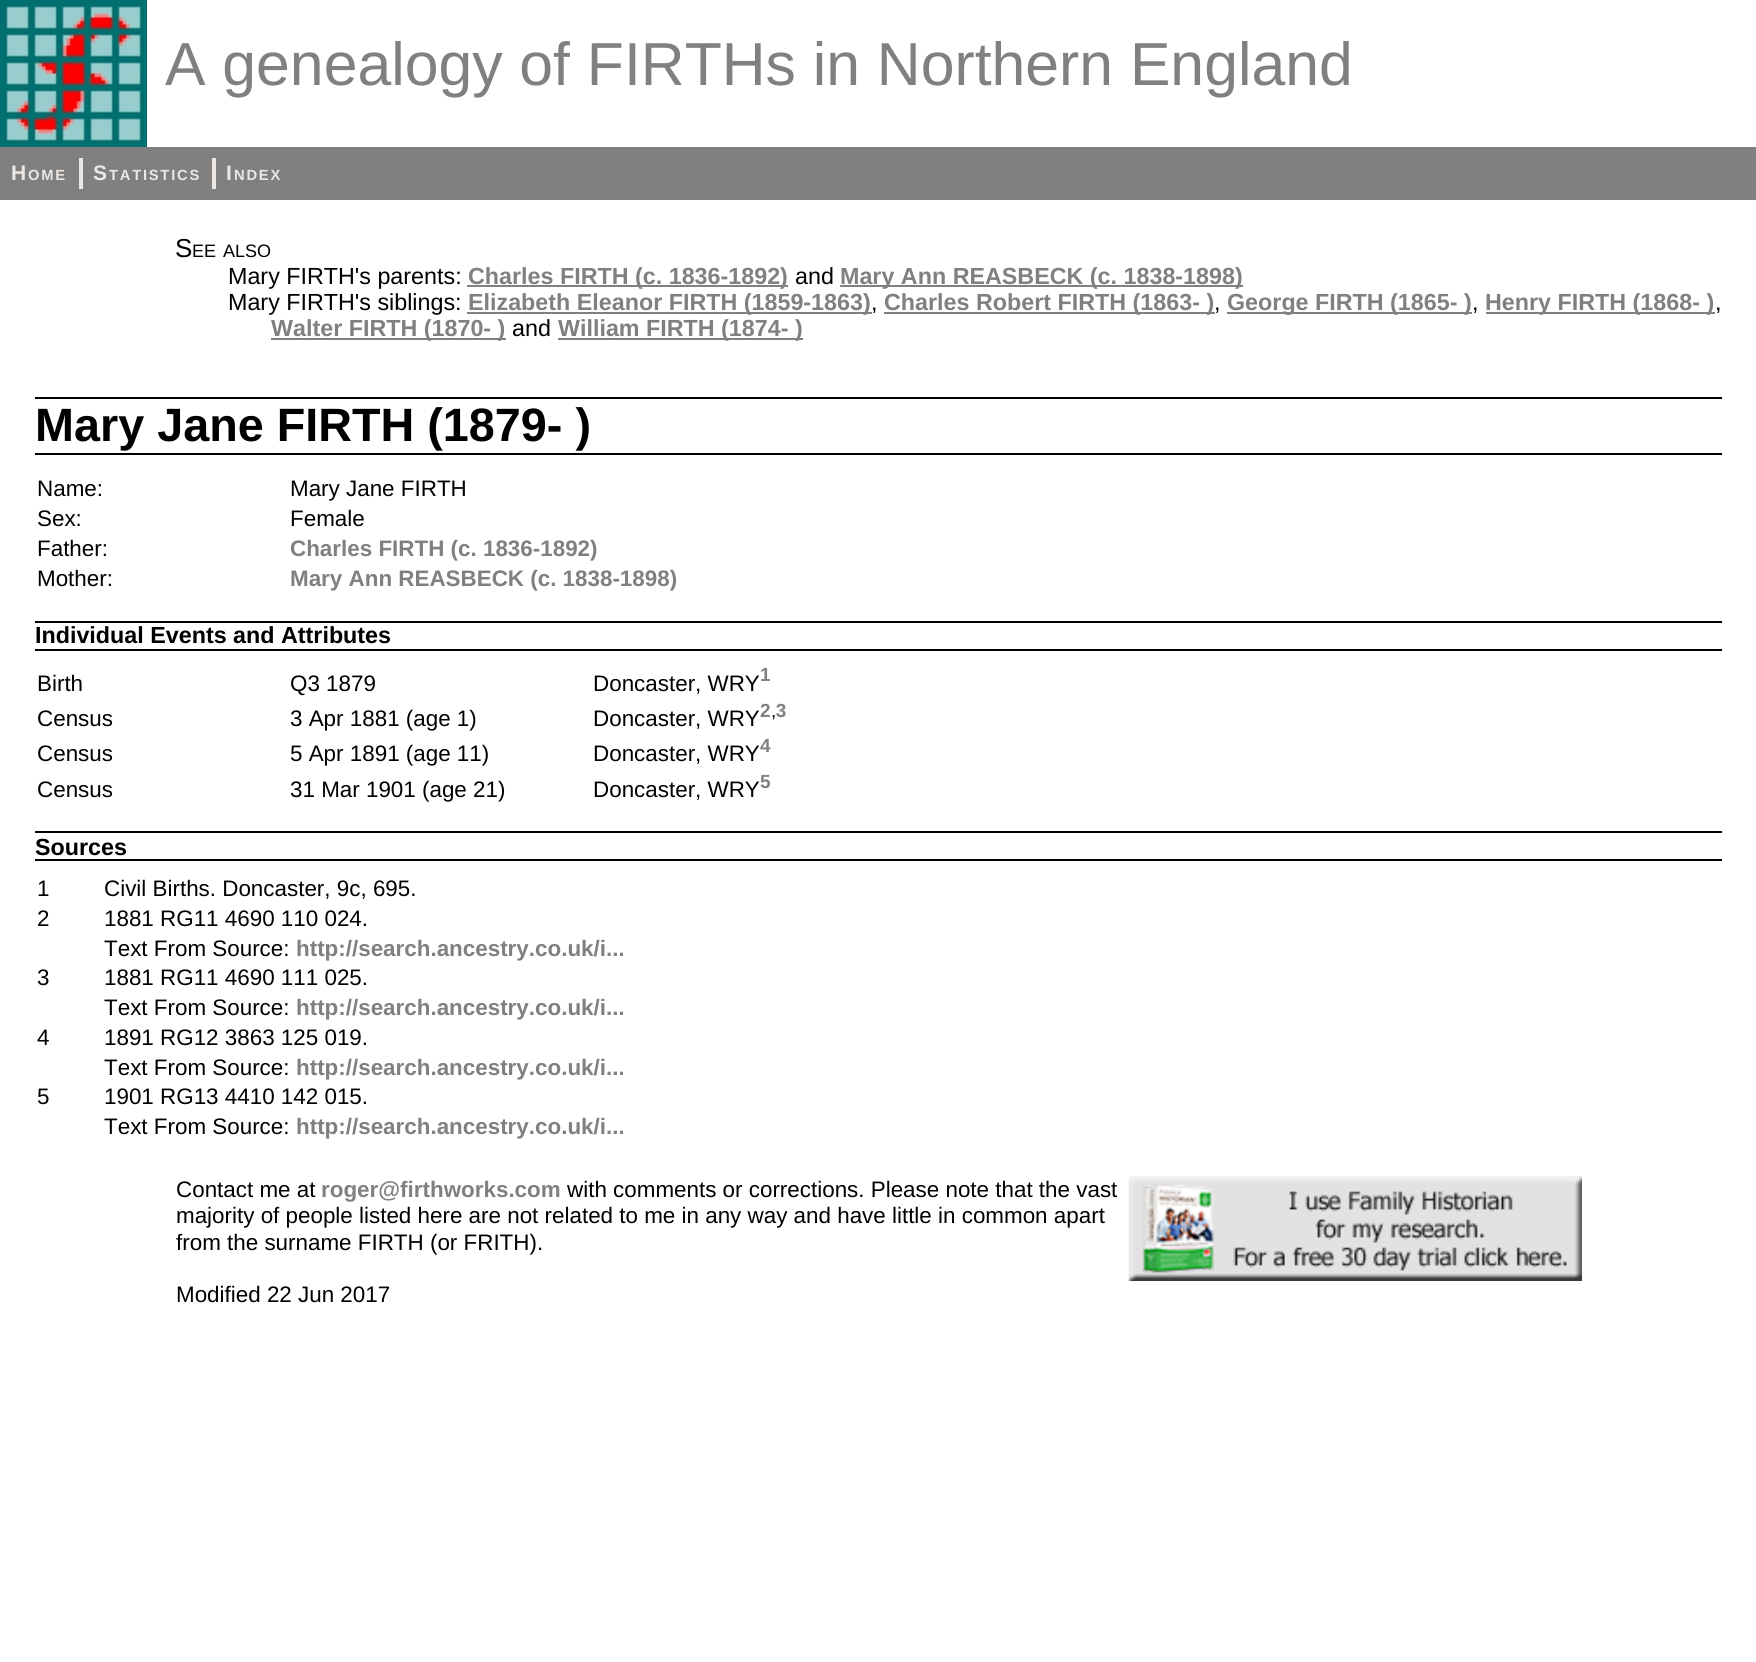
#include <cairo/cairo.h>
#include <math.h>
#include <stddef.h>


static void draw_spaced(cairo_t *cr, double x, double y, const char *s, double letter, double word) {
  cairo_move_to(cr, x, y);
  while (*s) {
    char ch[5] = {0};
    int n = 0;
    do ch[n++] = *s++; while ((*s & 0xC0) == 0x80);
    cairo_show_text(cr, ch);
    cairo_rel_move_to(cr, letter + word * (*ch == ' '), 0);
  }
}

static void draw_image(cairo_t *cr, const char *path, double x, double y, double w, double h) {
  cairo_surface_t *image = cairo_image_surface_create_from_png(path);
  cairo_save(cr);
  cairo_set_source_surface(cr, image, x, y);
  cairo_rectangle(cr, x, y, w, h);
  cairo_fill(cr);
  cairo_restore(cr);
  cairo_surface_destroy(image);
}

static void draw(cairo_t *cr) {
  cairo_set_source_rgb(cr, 1, 1, 1);
  cairo_paint(cr);
  draw_image(cr, "images/1.png", 0, 0, 147, 147);
  cairo_set_source_rgb(cr, 128 / 255.0, 128 / 255.0, 128 / 255.0);
  cairo_rectangle(cr, 0, 147, 1756, 53);
  cairo_fill(cr);
  cairo_set_source_rgb(cr, 236 / 255.0, 231 / 255.0, 227 / 255.0);
  cairo_rectangle(cr, 79, 158, 4, 31);
  cairo_fill(cr);
  cairo_rectangle(cr, 212, 158, 4, 31);
  cairo_fill(cr);
  cairo_set_source_rgb(cr, 128 / 255.0, 128 / 255.0, 128 / 255.0);
  cairo_rectangle(cr, 467, 285, 321, 2);
  cairo_fill(cr);
  cairo_rectangle(cr, 840, 285, 403, 2);
  cairo_fill(cr);
  cairo_rectangle(cr, 467, 312, 405, 2);
  cairo_fill(cr);
  cairo_rectangle(cr, 884, 312, 331, 2);
  cairo_fill(cr);
  cairo_rectangle(cr, 1227, 312, 245, 2);
  cairo_fill(cr);
  cairo_rectangle(cr, 1486, 312, 229, 2);
  cairo_fill(cr);
  cairo_rectangle(cr, 271, 338, 235, 2);
  cairo_fill(cr);
  cairo_rectangle(cr, 558, 338, 245, 2);
  cairo_fill(cr);
  cairo_set_source_rgb(cr, 0, 0, 0);
  cairo_rectangle(cr, 35, 397, 1687, 2);
  cairo_fill(cr);
  cairo_rectangle(cr, 35, 453, 1687, 2);
  cairo_fill(cr);
  cairo_rectangle(cr, 35, 621, 1687, 2);
  cairo_fill(cr);
  cairo_rectangle(cr, 35, 649, 1687, 2);
  cairo_fill(cr);
  cairo_rectangle(cr, 35, 831, 1687, 2);
  cairo_fill(cr);
  cairo_rectangle(cr, 35, 859, 1687, 2);
  cairo_fill(cr);
  draw_image(cr, "images/2.png", 1128, 1176, 454, 105);
  cairo_select_font_face(cr, "Liberation Sans", CAIRO_FONT_SLANT_NORMAL, CAIRO_FONT_WEIGHT_NORMAL);
  cairo_set_font_size(cr, 60.7);
  cairo_set_source_rgb(cr, 128 / 255.0, 128 / 255.0, 128 / 255.0);
  cairo_move_to(cr, 165, 85);
  cairo_show_text(cr, "A genealogy of FIRTHs in Northern England");
  cairo_select_font_face(cr, "Liberation Sans", CAIRO_FONT_SLANT_NORMAL, CAIRO_FONT_WEIGHT_BOLD);
  cairo_set_font_size(cr, 21);
  cairo_set_source_rgb(cr, 236 / 255.0, 231 / 255.0, 227 / 255.0);
  draw_spaced(cr, 11, 180, "H", 1.75, 0);
  cairo_set_font_size(cr, 14.75);
  draw_spaced(cr, 28, 180, "OME", 1.75, 0);
  cairo_set_font_size(cr, 21);
  draw_spaced(cr, 93, 180, "S", 1.75, 0);
  cairo_set_font_size(cr, 14.75);
  draw_spaced(cr, 109, 180, "TATISTICS", 1.75, 0);
  cairo_set_font_size(cr, 21);
  draw_spaced(cr, 226, 180, "I", 1.75, 0);
  cairo_set_font_size(cr, 14.75);
  draw_spaced(cr, 234, 180, "NDEX", 1.75, 0);
  cairo_select_font_face(cr, "Liberation Sans", CAIRO_FONT_SLANT_NORMAL, CAIRO_FONT_WEIGHT_NORMAL);
  cairo_set_font_size(cr, 26);
  cairo_set_source_rgb(cr, 0, 0, 0);
  cairo_move_to(cr, 175, 257);
  cairo_show_text(cr, "S");
  cairo_set_font_size(cr, 18);
  cairo_move_to(cr, 192, 257);
  cairo_show_text(cr, "EE");
  cairo_move_to(cr, 223, 257);
  cairo_show_text(cr, "ALSO");
  cairo_set_font_size(cr, 23.3);
  cairo_move_to(cr, 228, 284);
  cairo_show_text(cr, "Mary FIRTH's parents:");
  cairo_select_font_face(cr, "Liberation Sans", CAIRO_FONT_SLANT_NORMAL, CAIRO_FONT_WEIGHT_BOLD);
  cairo_set_source_rgb(cr, 128 / 255.0, 128 / 255.0, 128 / 255.0);
  cairo_move_to(cr, 468, 284);
  cairo_show_text(cr, "Charles FIRTH (c. 1836-1892)");
  cairo_select_font_face(cr, "Liberation Sans", CAIRO_FONT_SLANT_NORMAL, CAIRO_FONT_WEIGHT_NORMAL);
  cairo_set_source_rgb(cr, 0, 0, 0);
  cairo_move_to(cr, 795, 284);
  cairo_show_text(cr, "and");
  cairo_select_font_face(cr, "Liberation Sans", CAIRO_FONT_SLANT_NORMAL, CAIRO_FONT_WEIGHT_BOLD);
  cairo_set_source_rgb(cr, 128 / 255.0, 128 / 255.0, 128 / 255.0);
  cairo_move_to(cr, 840, 284);
  cairo_show_text(cr, "Mary Ann REASBECK (c. 1838-1898)");
  cairo_select_font_face(cr, "Liberation Sans", CAIRO_FONT_SLANT_NORMAL, CAIRO_FONT_WEIGHT_NORMAL);
  cairo_set_source_rgb(cr, 0, 0, 0);
  cairo_move_to(cr, 228, 310);
  cairo_show_text(cr, "Mary FIRTH's siblings:");
  cairo_select_font_face(cr, "Liberation Sans", CAIRO_FONT_SLANT_NORMAL, CAIRO_FONT_WEIGHT_BOLD);
  cairo_set_source_rgb(cr, 128 / 255.0, 128 / 255.0, 128 / 255.0);
  cairo_move_to(cr, 468, 310);
  cairo_show_text(cr, "Elizabeth Eleanor FIRTH (1859-1863)");
  cairo_select_font_face(cr, "Liberation Sans", CAIRO_FONT_SLANT_NORMAL, CAIRO_FONT_WEIGHT_NORMAL);
  cairo_set_source_rgb(cr, 0, 0, 0);
  cairo_move_to(cr, 871, 310);
  cairo_show_text(cr, ",");
  cairo_select_font_face(cr, "Liberation Sans", CAIRO_FONT_SLANT_NORMAL, CAIRO_FONT_WEIGHT_BOLD);
  cairo_set_source_rgb(cr, 128 / 255.0, 128 / 255.0, 128 / 255.0);
  cairo_move_to(cr, 884, 310);
  cairo_show_text(cr, "Charles Robert FIRTH (1863- )");
  cairo_select_font_face(cr, "Liberation Sans", CAIRO_FONT_SLANT_NORMAL, CAIRO_FONT_WEIGHT_NORMAL);
  cairo_set_source_rgb(cr, 0, 0, 0);
  cairo_move_to(cr, 1214, 310);
  cairo_show_text(cr, ",");
  cairo_select_font_face(cr, "Liberation Sans", CAIRO_FONT_SLANT_NORMAL, CAIRO_FONT_WEIGHT_BOLD);
  cairo_set_source_rgb(cr, 128 / 255.0, 128 / 255.0, 128 / 255.0);
  cairo_move_to(cr, 1227, 310);
  cairo_show_text(cr, "George FIRTH (1865- )");
  cairo_select_font_face(cr, "Liberation Sans", CAIRO_FONT_SLANT_NORMAL, CAIRO_FONT_WEIGHT_NORMAL);
  cairo_set_source_rgb(cr, 0, 0, 0);
  cairo_move_to(cr, 1472, 310);
  cairo_show_text(cr, ",");
  cairo_select_font_face(cr, "Liberation Sans", CAIRO_FONT_SLANT_NORMAL, CAIRO_FONT_WEIGHT_BOLD);
  cairo_set_source_rgb(cr, 128 / 255.0, 128 / 255.0, 128 / 255.0);
  cairo_move_to(cr, 1485, 310);
  cairo_show_text(cr, "Henry FIRTH (1868- )");
  cairo_select_font_face(cr, "Liberation Sans", CAIRO_FONT_SLANT_NORMAL, CAIRO_FONT_WEIGHT_NORMAL);
  cairo_set_source_rgb(cr, 0, 0, 0);
  cairo_move_to(cr, 1715, 310);
  cairo_show_text(cr, ",");
  cairo_select_font_face(cr, "Liberation Sans", CAIRO_FONT_SLANT_NORMAL, CAIRO_FONT_WEIGHT_BOLD);
  cairo_set_source_rgb(cr, 128 / 255.0, 128 / 255.0, 128 / 255.0);
  cairo_move_to(cr, 271, 336);
  cairo_show_text(cr, "Walter FIRTH (1870- )");
  cairo_select_font_face(cr, "Liberation Sans", CAIRO_FONT_SLANT_NORMAL, CAIRO_FONT_WEIGHT_NORMAL);
  cairo_set_source_rgb(cr, 0, 0, 0);
  cairo_move_to(cr, 512, 336);
  cairo_show_text(cr, "and");
  cairo_select_font_face(cr, "Liberation Sans", CAIRO_FONT_SLANT_NORMAL, CAIRO_FONT_WEIGHT_BOLD);
  cairo_set_source_rgb(cr, 128 / 255.0, 128 / 255.0, 128 / 255.0);
  cairo_move_to(cr, 558, 336);
  cairo_show_text(cr, "William FIRTH (1874- )");
  cairo_set_font_size(cr, 46.75);
  cairo_set_source_rgb(cr, 0, 0, 0);
  cairo_move_to(cr, 35, 441);
  cairo_show_text(cr, "Mary Jane FIRTH (1879- )");
  cairo_select_font_face(cr, "Liberation Sans", CAIRO_FONT_SLANT_NORMAL, CAIRO_FONT_WEIGHT_NORMAL);
  cairo_set_font_size(cr, 22.4);
  cairo_move_to(cr, 37, 496);
  cairo_show_text(cr, "Name:");
  cairo_move_to(cr, 290, 496);
  cairo_show_text(cr, "Mary Jane FIRTH");
  cairo_move_to(cr, 37, 526);
  cairo_show_text(cr, "Sex:");
  cairo_move_to(cr, 290, 526);
  cairo_show_text(cr, "Female");
  cairo_move_to(cr, 37, 556);
  cairo_show_text(cr, "Father:");
  cairo_select_font_face(cr, "Liberation Sans", CAIRO_FONT_SLANT_NORMAL, CAIRO_FONT_WEIGHT_BOLD);
  cairo_set_source_rgb(cr, 128 / 255.0, 128 / 255.0, 128 / 255.0);
  cairo_move_to(cr, 290, 556);
  cairo_show_text(cr, "Charles FIRTH (c. 1836-1892)");
  cairo_select_font_face(cr, "Liberation Sans", CAIRO_FONT_SLANT_NORMAL, CAIRO_FONT_WEIGHT_NORMAL);
  cairo_set_source_rgb(cr, 0, 0, 0);
  cairo_move_to(cr, 37, 586);
  cairo_show_text(cr, "Mother:");
  cairo_select_font_face(cr, "Liberation Sans", CAIRO_FONT_SLANT_NORMAL, CAIRO_FONT_WEIGHT_BOLD);
  cairo_set_source_rgb(cr, 128 / 255.0, 128 / 255.0, 128 / 255.0);
  cairo_move_to(cr, 290, 586);
  cairo_show_text(cr, "Mary Ann REASBECK (c. 1838-1898)");
  cairo_set_font_size(cr, 23.3);
  cairo_set_source_rgb(cr, 0, 0, 0);
  cairo_move_to(cr, 35, 643);
  cairo_show_text(cr, "Individual Events and Attributes");
  cairo_select_font_face(cr, "Liberation Sans", CAIRO_FONT_SLANT_NORMAL, CAIRO_FONT_WEIGHT_NORMAL);
  cairo_set_font_size(cr, 22.4);
  cairo_move_to(cr, 37, 691);
  cairo_show_text(cr, "Birth");
  cairo_move_to(cr, 290, 691);
  cairo_show_text(cr, "Q3 1879");
  cairo_move_to(cr, 593, 691);
  cairo_show_text(cr, "Doncaster, WRY");
  cairo_select_font_face(cr, "Liberation Sans", CAIRO_FONT_SLANT_NORMAL, CAIRO_FONT_WEIGHT_BOLD);
  cairo_set_font_size(cr, 19);
  cairo_set_source_rgb(cr, 128 / 255.0, 128 / 255.0, 128 / 255.0);
  cairo_move_to(cr, 760, 681);
  cairo_show_text(cr, "1");
  cairo_select_font_face(cr, "Liberation Sans", CAIRO_FONT_SLANT_NORMAL, CAIRO_FONT_WEIGHT_NORMAL);
  cairo_set_font_size(cr, 22.4);
  cairo_set_source_rgb(cr, 0, 0, 0);
  cairo_move_to(cr, 37, 726);
  cairo_show_text(cr, "Census");
  cairo_move_to(cr, 290, 726);
  cairo_show_text(cr, "3 Apr 1881 (age 1)");
  cairo_move_to(cr, 593, 726);
  cairo_show_text(cr, "Doncaster, WRY");
  cairo_select_font_face(cr, "Liberation Sans", CAIRO_FONT_SLANT_NORMAL, CAIRO_FONT_WEIGHT_BOLD);
  cairo_set_font_size(cr, 19);
  cairo_set_source_rgb(cr, 128 / 255.0, 128 / 255.0, 128 / 255.0);
  cairo_move_to(cr, 760, 717);
  cairo_show_text(cr, "2 3");
  cairo_select_font_face(cr, "Liberation Sans", CAIRO_FONT_SLANT_NORMAL, CAIRO_FONT_WEIGHT_NORMAL);
  cairo_set_source_rgb(cr, 0, 0, 0);
  cairo_move_to(cr, 771, 717);
  cairo_show_text(cr, ",");
  cairo_set_font_size(cr, 22.4);
  cairo_move_to(cr, 37, 761);
  cairo_show_text(cr, "Census");
  cairo_move_to(cr, 290, 761);
  cairo_show_text(cr, "5 Apr 1891 (age 11)");
  cairo_move_to(cr, 593, 761);
  cairo_show_text(cr, "Doncaster, WRY");
  cairo_select_font_face(cr, "Liberation Sans", CAIRO_FONT_SLANT_NORMAL, CAIRO_FONT_WEIGHT_BOLD);
  cairo_set_font_size(cr, 19);
  cairo_set_source_rgb(cr, 128 / 255.0, 128 / 255.0, 128 / 255.0);
  cairo_move_to(cr, 760, 752);
  cairo_show_text(cr, "4");
  cairo_select_font_face(cr, "Liberation Sans", CAIRO_FONT_SLANT_NORMAL, CAIRO_FONT_WEIGHT_NORMAL);
  cairo_set_font_size(cr, 22.4);
  cairo_set_source_rgb(cr, 0, 0, 0);
  cairo_move_to(cr, 37, 797);
  cairo_show_text(cr, "Census");
  cairo_move_to(cr, 290, 797);
  cairo_show_text(cr, "31 Mar 1901 (age 21)");
  cairo_move_to(cr, 593, 797);
  cairo_show_text(cr, "Doncaster, WRY");
  cairo_select_font_face(cr, "Liberation Sans", CAIRO_FONT_SLANT_NORMAL, CAIRO_FONT_WEIGHT_BOLD);
  cairo_set_font_size(cr, 19);
  cairo_set_source_rgb(cr, 128 / 255.0, 128 / 255.0, 128 / 255.0);
  cairo_move_to(cr, 760, 788);
  cairo_show_text(cr, "5");
  cairo_set_font_size(cr, 23.3);
  cairo_set_source_rgb(cr, 0, 0, 0);
  cairo_move_to(cr, 35, 855);
  cairo_show_text(cr, "Sources");
  cairo_select_font_face(cr, "Liberation Sans", CAIRO_FONT_SLANT_NORMAL, CAIRO_FONT_WEIGHT_NORMAL);
  cairo_set_font_size(cr, 22.4);
  cairo_move_to(cr, 37, 896);
  cairo_show_text(cr, "1");
  cairo_move_to(cr, 104, 896);
  cairo_show_text(cr, "Civil Births. Doncaster, 9c, 695.");
  cairo_move_to(cr, 37, 926);
  cairo_show_text(cr, "2");
  cairo_move_to(cr, 104, 926);
  cairo_show_text(cr, "1881 RG11 4690 110 024.");
  cairo_move_to(cr, 104, 956);
  cairo_show_text(cr, "Text From Source:");
  cairo_select_font_face(cr, "Liberation Sans", CAIRO_FONT_SLANT_NORMAL, CAIRO_FONT_WEIGHT_BOLD);
  cairo_set_source_rgb(cr, 128 / 255.0, 128 / 255.0, 128 / 255.0);
  cairo_move_to(cr, 296, 956);
  cairo_show_text(cr, "http://search.ancestry.co.uk/i...");
  cairo_select_font_face(cr, "Liberation Sans", CAIRO_FONT_SLANT_NORMAL, CAIRO_FONT_WEIGHT_NORMAL);
  cairo_set_source_rgb(cr, 0, 0, 0);
  cairo_move_to(cr, 37, 985);
  cairo_show_text(cr, "3");
  cairo_move_to(cr, 104, 985);
  cairo_show_text(cr, "1881 RG11 4690 111 025.");
  cairo_move_to(cr, 104, 1015);
  cairo_show_text(cr, "Text From Source:");
  cairo_select_font_face(cr, "Liberation Sans", CAIRO_FONT_SLANT_NORMAL, CAIRO_FONT_WEIGHT_BOLD);
  cairo_set_source_rgb(cr, 128 / 255.0, 128 / 255.0, 128 / 255.0);
  cairo_move_to(cr, 296, 1015);
  cairo_show_text(cr, "http://search.ancestry.co.uk/i...");
  cairo_select_font_face(cr, "Liberation Sans", CAIRO_FONT_SLANT_NORMAL, CAIRO_FONT_WEIGHT_NORMAL);
  cairo_set_source_rgb(cr, 0, 0, 0);
  cairo_move_to(cr, 37, 1045);
  cairo_show_text(cr, "4");
  cairo_move_to(cr, 104, 1045);
  cairo_show_text(cr, "1891 RG12 3863 125 019.");
  cairo_move_to(cr, 104, 1075);
  cairo_show_text(cr, "Text From Source:");
  cairo_select_font_face(cr, "Liberation Sans", CAIRO_FONT_SLANT_NORMAL, CAIRO_FONT_WEIGHT_BOLD);
  cairo_set_source_rgb(cr, 128 / 255.0, 128 / 255.0, 128 / 255.0);
  cairo_move_to(cr, 296, 1075);
  cairo_show_text(cr, "http://search.ancestry.co.uk/i...");
  cairo_select_font_face(cr, "Liberation Sans", CAIRO_FONT_SLANT_NORMAL, CAIRO_FONT_WEIGHT_NORMAL);
  cairo_set_source_rgb(cr, 0, 0, 0);
  cairo_move_to(cr, 37, 1104);
  cairo_show_text(cr, "5");
  cairo_move_to(cr, 104, 1104);
  cairo_show_text(cr, "1901 RG13 4410 142 015.");
  cairo_move_to(cr, 104, 1134);
  cairo_show_text(cr, "Text From Source:");
  cairo_select_font_face(cr, "Liberation Sans", CAIRO_FONT_SLANT_NORMAL, CAIRO_FONT_WEIGHT_BOLD);
  cairo_set_source_rgb(cr, 128 / 255.0, 128 / 255.0, 128 / 255.0);
  cairo_move_to(cr, 296, 1134);
  cairo_show_text(cr, "http://search.ancestry.co.uk/i...");
  cairo_select_font_face(cr, "Liberation Sans", CAIRO_FONT_SLANT_NORMAL, CAIRO_FONT_WEIGHT_NORMAL);
  cairo_set_source_rgb(cr, 0, 0, 0);
  cairo_move_to(cr, 176, 1197);
  cairo_show_text(cr, "Contact me at");
  cairo_select_font_face(cr, "Liberation Sans", CAIRO_FONT_SLANT_NORMAL, CAIRO_FONT_WEIGHT_BOLD);
  cairo_set_source_rgb(cr, 128 / 255.0, 128 / 255.0, 128 / 255.0);
  cairo_move_to(cr, 321, 1197);
  cairo_show_text(cr, "roger@firthworks.com");
  cairo_select_font_face(cr, "Liberation Sans", CAIRO_FONT_SLANT_NORMAL, CAIRO_FONT_WEIGHT_NORMAL);
  cairo_set_source_rgb(cr, 0, 0, 0);
  cairo_move_to(cr, 567, 1197);
  cairo_show_text(cr, "with comments or corrections. Please note that the vast");
  cairo_move_to(cr, 176, 1223);
  cairo_show_text(cr, "majority of people listed here are not related to me in any way and have little in common apart");
  cairo_move_to(cr, 176, 1250);
  cairo_show_text(cr, "from the surname FIRTH (or FRITH).");
  cairo_move_to(cr, 176, 1302);
  cairo_show_text(cr, "Modified 22 Jun 2017");
}

int main(void) {
  cairo_surface_t *surface = cairo_image_surface_create(CAIRO_FORMAT_RGB24, 1756, 1662);
  cairo_t *cr = cairo_create(surface);
  cairo_font_options_t *options = cairo_font_options_create();
  cairo_font_options_set_hint_metrics(options, CAIRO_HINT_METRICS_OFF);
  cairo_font_options_set_hint_style(options, CAIRO_HINT_STYLE_NONE);
  cairo_set_font_options(cr, options);
  cairo_set_miter_limit(cr, 4);
  draw(cr);
  cairo_surface_write_to_png(surface, "out.png");
  cairo_font_options_destroy(options);
  cairo_destroy(cr);
  cairo_surface_destroy(surface);
  return 0;
}
